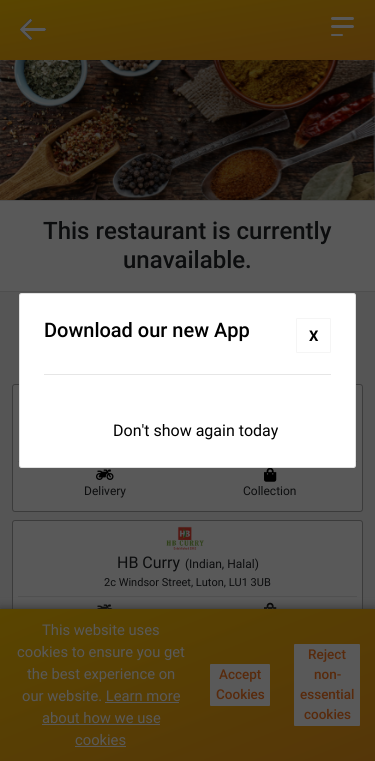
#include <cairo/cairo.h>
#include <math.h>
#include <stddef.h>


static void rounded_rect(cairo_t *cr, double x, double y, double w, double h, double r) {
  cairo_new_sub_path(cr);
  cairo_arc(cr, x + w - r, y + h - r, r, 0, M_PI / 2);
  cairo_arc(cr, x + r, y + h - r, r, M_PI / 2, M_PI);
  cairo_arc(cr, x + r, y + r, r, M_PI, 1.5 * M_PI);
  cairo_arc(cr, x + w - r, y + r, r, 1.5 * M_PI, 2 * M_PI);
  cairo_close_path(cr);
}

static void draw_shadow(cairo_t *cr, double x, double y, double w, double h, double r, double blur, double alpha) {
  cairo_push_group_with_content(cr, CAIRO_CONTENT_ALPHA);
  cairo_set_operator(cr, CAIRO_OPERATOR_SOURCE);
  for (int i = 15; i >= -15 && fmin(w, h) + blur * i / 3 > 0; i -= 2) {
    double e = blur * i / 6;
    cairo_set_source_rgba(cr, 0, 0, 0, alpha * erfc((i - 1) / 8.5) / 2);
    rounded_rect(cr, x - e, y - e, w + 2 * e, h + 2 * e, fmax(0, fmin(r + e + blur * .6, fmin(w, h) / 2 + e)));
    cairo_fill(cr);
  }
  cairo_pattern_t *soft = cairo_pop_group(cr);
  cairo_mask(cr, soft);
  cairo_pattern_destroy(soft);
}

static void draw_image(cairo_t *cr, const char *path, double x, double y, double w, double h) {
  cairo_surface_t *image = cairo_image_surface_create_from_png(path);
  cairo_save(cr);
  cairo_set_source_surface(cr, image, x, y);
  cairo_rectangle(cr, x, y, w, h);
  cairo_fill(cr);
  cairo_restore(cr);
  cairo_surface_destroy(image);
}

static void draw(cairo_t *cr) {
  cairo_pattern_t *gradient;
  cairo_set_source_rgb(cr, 85 / 255.0, 85 / 255.0, 85 / 255.0);
  cairo_paint(cr);
  gradient = cairo_pattern_create_linear(178, -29, 197, 89);
  cairo_pattern_add_color_stop_rgba(gradient, 0, 89 / 255.0, 69 / 255.0, 0, 1);
  cairo_pattern_add_color_stop_rgba(gradient, 1, 85 / 255.0, 54 / 255.0, 9 / 255.0, 1);
  cairo_set_source(cr, gradient);
  cairo_pattern_destroy(gradient);
  cairo_rectangle(cr, 0, 0, 375, 60);
  cairo_fill(cr);
  draw_image(cr, "images/1.png", 20, 19, 26, 21);
  cairo_set_source_rgb(cr, 89 / 255.0, 89 / 255.0, 89 / 255.0);
  rounded_rect(cr, 331, 17, 23, 3, 1.5);
  cairo_fill(cr);
  rounded_rect(cr, 331, 25, 23, 3, 1.5);
  cairo_fill(cr);
  rounded_rect(cr, 331, 34, 12, 2, 1);
  cairo_fill(cr);
  draw_image(cr, "images/2.png", 0, 60, 375, 140);
  cairo_rectangle(cr, -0.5, 200.5, 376, 91);
  cairo_fill_preserve(cr);
  cairo_set_source_rgb(cr, 78 / 255.0, 78 / 255.0, 78 / 255.0);
  cairo_set_line_width(cr, 1);
  cairo_stroke(cr);
  cairo_set_source_rgb(cr, 89 / 255.0, 89 / 255.0, 89 / 255.0);
  rounded_rect(cr, 12.5, 384.5, 350, 127, 2.5);
  cairo_fill_preserve(cr);
  cairo_set_source_rgb(cr, 59 / 255.0, 59 / 255.0, 59 / 255.0);
  cairo_stroke(cr);
  cairo_set_source_rgb(cr, 80 / 255.0, 80 / 255.0, 80 / 255.0);
  cairo_rectangle(cr, 18, 461, 339, 1);
  cairo_fill(cr);
  draw_image(cr, "images/3.png", 96, 469, 18, 11);
  draw_image(cr, "images/4.png", 264, 468, 13, 14);
  cairo_set_source_rgb(cr, 89 / 255.0, 89 / 255.0, 89 / 255.0);
  rounded_rect(cr, 12.5, 520.5, 350, 126, 2.5);
  cairo_fill_preserve(cr);
  cairo_set_source_rgb(cr, 59 / 255.0, 59 / 255.0, 59 / 255.0);
  cairo_stroke(cr);
  draw_image(cr, "images/5.png", 166, 526, 38, 24);
  cairo_set_source_rgb(cr, 80 / 255.0, 80 / 255.0, 80 / 255.0);
  cairo_rectangle(cr, 18, 596, 339, 1);
  cairo_fill(cr);
  draw_image(cr, "images/6.png", 97, 604, 16, 5);
  draw_image(cr, "images/7.png", 264, 602, 13, 7);
  cairo_set_source_rgb(cr, 1, 1, 1);
  rounded_rect(cr, 19, 293, 337, 175, 2.5);
  cairo_fill(cr);
  rounded_rect(cr, 19.5, 293.5, 336, 174, 2);
  cairo_set_source_rgba(cr, 0, 0, 0, 0.12);
  cairo_stroke(cr);
  rounded_rect(cr, 296.5, 318.5, 34, 34, 0.5);
  cairo_set_source_rgb(cr, 245 / 255.0, 245 / 255.0, 245 / 255.0);
  cairo_stroke(cr);
  cairo_set_source_rgb(cr, 230 / 255.0, 230 / 255.0, 230 / 255.0);
  cairo_rectangle(cr, 44, 374, 287, 1);
  cairo_fill(cr);
  cairo_set_source_rgb(cr, 45 / 255.0, 45 / 255.0, 45 / 255.0);
  draw_shadow(cr, 0, 609, 375, 152, 0, 5, 1);
  gradient = cairo_pattern_create_linear(135, 554, 240, 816);
  cairo_pattern_add_color_stop_rgba(gradient, 0, 89 / 255.0, 69 / 255.0, 0, 1);
  cairo_pattern_add_color_stop_rgba(gradient, 1, 85 / 255.0, 54 / 255.0, 9 / 255.0, 1);
  cairo_set_source(cr, gradient);
  cairo_pattern_destroy(gradient);
  cairo_rectangle(cr, 0, 609, 375, 152);
  cairo_fill(cr);
  cairo_set_source_rgb(cr, 89 / 255.0, 89 / 255.0, 89 / 255.0);
  cairo_rectangle(cr, 105, 702, 74, 1);
  cairo_fill(cr);
  cairo_rectangle(cr, 42, 724, 118, 1);
  cairo_fill(cr);
  cairo_rectangle(cr, 75, 746, 51, 1);
  cairo_fill(cr);
  rounded_rect(cr, 210, 664, 60, 42, 1);
  cairo_fill(cr);
  rounded_rect(cr, 294, 644, 66, 82, 1);
  cairo_fill(cr);
  cairo_select_font_face(cr, "Roboto Medium", CAIRO_FONT_SLANT_NORMAL, CAIRO_FONT_WEIGHT_NORMAL);
  cairo_set_font_size(cr, 24);
  cairo_set_source_rgb(cr, 12 / 255.0, 13 / 255.0, 14 / 255.0);
  cairo_move_to(cr, 43, 239);
  cairo_show_text(cr, "This restaurant is currently");
  cairo_move_to(cr, 123, 268);
  cairo_show_text(cr, "unavailable.");
  cairo_select_font_face(cr, "Roboto", CAIRO_FONT_SLANT_NORMAL, CAIRO_FONT_WEIGHT_NORMAL);
  cairo_set_font_size(cr, 12);
  cairo_move_to(cr, 84, 495);
  cairo_show_text(cr, "Delivery");
  cairo_move_to(cr, 243, 495);
  cairo_show_text(cr, "Collection");
  cairo_set_font_size(cr, 16);
  cairo_move_to(cr, 117, 568);
  cairo_show_text(cr, "HB Curry");
  cairo_set_font_size(cr, 12);
  cairo_move_to(cr, 185, 568);
  cairo_show_text(cr, "(Indian, Halal)");
  cairo_set_font_size(cr, 11);
  cairo_move_to(cr, 104, 586);
  cairo_show_text(cr, "2c Windsor Street, Luton, LU1 3UB");
  cairo_select_font_face(cr, "Roboto Medium", CAIRO_FONT_SLANT_NORMAL, CAIRO_FONT_WEIGHT_NORMAL);
  cairo_set_font_size(cr, 20);
  cairo_set_source_rgb(cr, 0, 0, 0);
  cairo_move_to(cr, 44, 337);
  cairo_show_text(cr, "Download our new App");
  cairo_select_font_face(cr, "Roboto", CAIRO_FONT_SLANT_NORMAL, CAIRO_FONT_WEIGHT_BOLD);
  cairo_set_font_size(cr, 14.75);
  cairo_move_to(cr, 309, 341);
  cairo_show_text(cr, "X");
  cairo_select_font_face(cr, "Roboto", CAIRO_FONT_SLANT_NORMAL, CAIRO_FONT_WEIGHT_NORMAL);
  cairo_set_font_size(cr, 16);
  cairo_move_to(cr, 113, 436);
  cairo_show_text(cr, "Don't show again today");
  cairo_set_font_size(cr, 14.75);
  cairo_set_source_rgb(cr, 89 / 255.0, 89 / 255.0, 89 / 255.0);
  cairo_move_to(cr, 42, 635);
  cairo_show_text(cr, "This website uses");
  cairo_move_to(cr, 17, 657);
  cairo_show_text(cr, "cookies to ensure you get");
  cairo_move_to(cr, 27, 679);
  cairo_show_text(cr, "the best experience on");
  cairo_move_to(cr, 22, 701);
  cairo_show_text(cr, "our website. Learn more");
  cairo_move_to(cr, 42, 723);
  cairo_show_text(cr, "about how we use");
  cairo_move_to(cr, 75, 745);
  cairo_show_text(cr, "cookies");
  cairo_select_font_face(cr, "Roboto Medium", CAIRO_FONT_SLANT_NORMAL, CAIRO_FONT_WEIGHT_NORMAL);
  cairo_set_font_size(cr, 13.5);
  cairo_set_source_rgb(cr, 88 / 255.0, 42 / 255.0, 12 / 255.0);
  cairo_move_to(cr, 219, 679);
  cairo_show_text(cr, "Accept");
  cairo_move_to(cr, 216, 699);
  cairo_show_text(cr, "Cookies");
  cairo_move_to(cr, 308, 659);
  cairo_show_text(cr, "Reject");
  cairo_move_to(cr, 314, 679);
  cairo_show_text(cr, "non-");
  cairo_move_to(cr, 300, 699);
  cairo_show_text(cr, "essential");
  cairo_move_to(cr, 304, 719);
  cairo_show_text(cr, "cookies");
}

int main(void) {
  cairo_surface_t *surface = cairo_image_surface_create(CAIRO_FORMAT_RGB24, 375, 761);
  cairo_t *cr = cairo_create(surface);
  cairo_font_options_t *options = cairo_font_options_create();
  cairo_font_options_set_hint_metrics(options, CAIRO_HINT_METRICS_OFF);
  cairo_font_options_set_hint_style(options, CAIRO_HINT_STYLE_NONE);
  cairo_set_font_options(cr, options);
  cairo_set_miter_limit(cr, 4);
  draw(cr);
  cairo_surface_write_to_png(surface, "out.png");
  cairo_font_options_destroy(options);
  cairo_destroy(cr);
  cairo_surface_destroy(surface);
  return 0;
}
